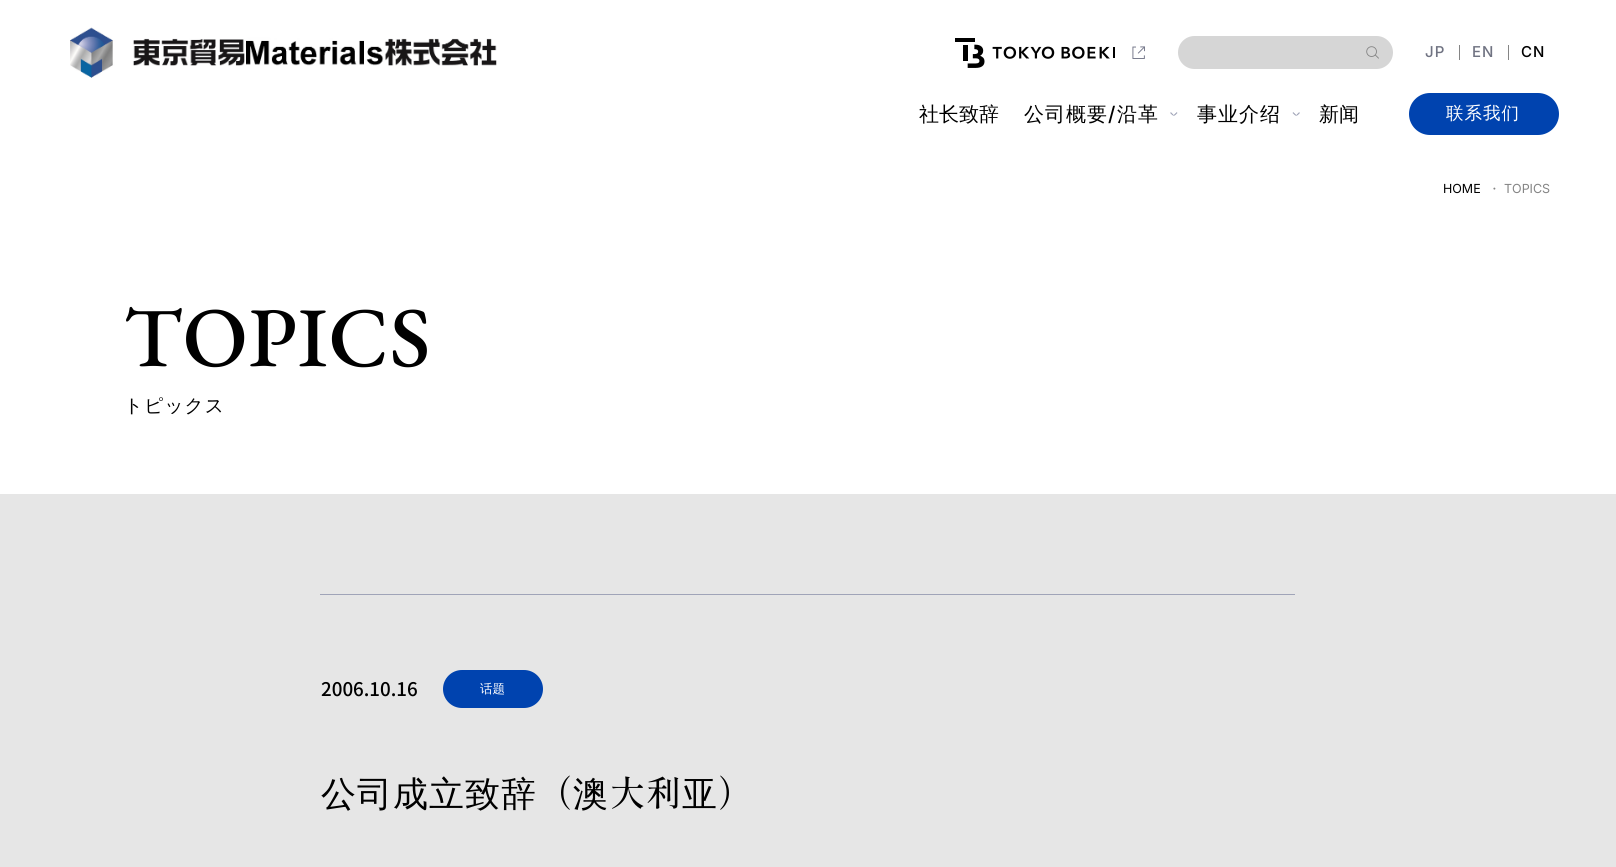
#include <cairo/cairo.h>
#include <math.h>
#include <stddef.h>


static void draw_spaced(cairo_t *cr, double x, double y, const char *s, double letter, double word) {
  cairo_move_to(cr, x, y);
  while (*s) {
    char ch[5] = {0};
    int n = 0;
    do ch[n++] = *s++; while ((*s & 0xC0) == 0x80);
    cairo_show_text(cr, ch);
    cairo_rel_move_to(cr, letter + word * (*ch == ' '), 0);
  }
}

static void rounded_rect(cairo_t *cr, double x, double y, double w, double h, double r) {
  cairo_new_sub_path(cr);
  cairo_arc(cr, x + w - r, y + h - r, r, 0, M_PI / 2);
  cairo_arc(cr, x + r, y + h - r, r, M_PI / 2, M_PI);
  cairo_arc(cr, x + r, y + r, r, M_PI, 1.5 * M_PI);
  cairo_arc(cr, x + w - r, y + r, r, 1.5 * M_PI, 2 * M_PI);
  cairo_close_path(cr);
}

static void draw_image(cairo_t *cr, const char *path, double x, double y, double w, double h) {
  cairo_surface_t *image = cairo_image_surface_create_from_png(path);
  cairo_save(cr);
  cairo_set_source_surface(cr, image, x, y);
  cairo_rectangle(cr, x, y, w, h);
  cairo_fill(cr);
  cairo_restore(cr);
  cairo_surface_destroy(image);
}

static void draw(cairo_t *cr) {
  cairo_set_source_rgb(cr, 1, 1, 1);
  cairo_paint(cr);
  draw_image(cr, "images/1.png", 70, 27, 427, 51);
  draw_image(cr, "images/2.png", 955, 38, 190, 30);
  cairo_set_source_rgb(cr, 214 / 255.0, 214 / 255.0, 214 / 255.0);
  rounded_rect(cr, 1178, 36, 215, 33, 16.5);
  cairo_fill(cr);
  draw_image(cr, "images/3.png", 1366, 46, 13, 13);
  cairo_set_source_rgb(cr, 133 / 255.0, 133 / 255.0, 133 / 255.0);
  cairo_rectangle(cr, 1459, 45, 1, 15);
  cairo_fill(cr);
  cairo_rectangle(cr, 1508, 45, 1, 15);
  cairo_fill(cr);
  draw_image(cr, "images/4.png", 1170, 112, 8, 4);
  draw_image(cr, "images/5.png", 1292, 112, 8, 4);
  cairo_set_source_rgb(cr, 0, 67 / 255.0, 175 / 255.0);
  rounded_rect(cr, 1409, 93, 150, 42, 21);
  cairo_fill(cr);
  cairo_set_source_rgb(cr, 230 / 255.0, 230 / 255.0, 230 / 255.0);
  cairo_rectangle(cr, 0, 494, 1616, 373);
  cairo_fill(cr);
  cairo_set_source_rgb(cr, 160 / 255.0, 164 / 255.0, 184 / 255.0);
  cairo_rectangle(cr, 320, 594, 975, 1);
  cairo_fill(cr);
  cairo_set_source_rgb(cr, 0, 67 / 255.0, 175 / 255.0);
  rounded_rect(cr, 443, 670, 100, 38, 19);
  cairo_fill(cr);
  cairo_select_font_face(cr, "Inter Medium", CAIRO_FONT_SLANT_NORMAL, CAIRO_FONT_WEIGHT_NORMAL);
  cairo_set_font_size(cr, 15);
  cairo_set_source_rgb(cr, 112 / 255.0, 115 / 255.0, 130 / 255.0);
  draw_spaced(cr, 1425, 57, "JP", 1, 0);
  draw_spaced(cr, 1472, 57, "EN", 1, 0);
  cairo_set_source_rgb(cr, 0, 0, 0);
  draw_spaced(cr, 1521, 57, "CN", 1, 0);
  cairo_select_font_face(cr, "WenQuanYi Zen Hei Medium", CAIRO_FONT_SLANT_NORMAL, CAIRO_FONT_WEIGHT_NORMAL);
  cairo_set_font_size(cr, 20);
  cairo_move_to(cr, 919, 121);
  cairo_show_text(cr, "社长致辞");
  draw_spaced(cr, 1024, 121, "公司概要", 1, 0);
  cairo_select_font_face(cr, "Inter Medium", CAIRO_FONT_SLANT_NORMAL, CAIRO_FONT_WEIGHT_NORMAL);
  draw_spaced(cr, 1108, 121, "/", 1, 0);
  cairo_select_font_face(cr, "WenQuanYi Zen Hei Medium", CAIRO_FONT_SLANT_NORMAL, CAIRO_FONT_WEIGHT_NORMAL);
  draw_spaced(cr, 1117, 121, "沿革", 1, 0);
  draw_spaced(cr, 1197, 121, "事业介绍", 1, 0);
  cairo_move_to(cr, 1319, 121);
  cairo_show_text(cr, "新闻");
  cairo_set_font_size(cr, 17.5);
  cairo_set_source_rgb(cr, 1, 1, 1);
  draw_spaced(cr, 1446, 119, "联系我们", 1, 0);
  cairo_select_font_face(cr, "Inter", CAIRO_FONT_SLANT_NORMAL, CAIRO_FONT_WEIGHT_NORMAL);
  cairo_set_font_size(cr, 12.5);
  cairo_set_source_rgb(cr, 0, 0, 0);
  cairo_move_to(cr, 1443, 193);
  cairo_show_text(cr, "HOME");
  cairo_select_font_face(cr, "WenQuanYi Zen Hei Medium", CAIRO_FONT_SLANT_NORMAL, CAIRO_FONT_WEIGHT_NORMAL);
  cairo_set_source_rgb(cr, 133 / 255.0, 133 / 255.0, 133 / 255.0);
  cairo_move_to(cr, 1488, 193);
  cairo_show_text(cr, "・");
  cairo_select_font_face(cr, "Inter", CAIRO_FONT_SLANT_NORMAL, CAIRO_FONT_WEIGHT_NORMAL);
  cairo_move_to(cr, 1504, 193);
  cairo_show_text(cr, "TOPICS");
  cairo_select_font_face(cr, "EB Garamond Medium", CAIRO_FONT_SLANT_NORMAL, CAIRO_FONT_WEIGHT_NORMAL);
  cairo_set_font_size(cr, 85);
  cairo_set_source_rgb(cr, 0, 0, 0);
  draw_spaced(cr, 124, 366, "TOPICS", 1, 0);
  cairo_select_font_face(cr, "WenQuanYi Zen Hei Medium", CAIRO_FONT_SLANT_NORMAL, CAIRO_FONT_WEIGHT_NORMAL);
  cairo_set_font_size(cr, 18.75);
  draw_spaced(cr, 124, 412, "トピックス", 1, 0);
  cairo_select_font_face(cr, "Noto Sans JP Medium", CAIRO_FONT_SLANT_NORMAL, CAIRO_FONT_WEIGHT_NORMAL);
  cairo_move_to(cr, 321, 696);
  cairo_show_text(cr, "2006.10.16");
  cairo_select_font_face(cr, "WenQuanYi Zen Hei Medium", CAIRO_FONT_SLANT_NORMAL, CAIRO_FONT_WEIGHT_NORMAL);
  cairo_set_font_size(cr, 12.5);
  cairo_set_source_rgb(cr, 1, 1, 1);
  cairo_move_to(cr, 480, 693);
  cairo_show_text(cr, "话题");
  cairo_set_font_size(cr, 35);
  cairo_set_source_rgb(cr, 0, 0, 0);
  draw_spaced(cr, 321, 806, "公司成立致辞", 1, 0);
  cairo_select_font_face(cr, "Shippori Mincho Medium", CAIRO_FONT_SLANT_NORMAL, CAIRO_FONT_WEIGHT_NORMAL);
  draw_spaced(cr, 537, 806, "（", 1, 0);
  cairo_select_font_face(cr, "WenQuanYi Zen Hei Medium", CAIRO_FONT_SLANT_NORMAL, CAIRO_FONT_WEIGHT_NORMAL);
  draw_spaced(cr, 573, 806, "澳", 1, 0);
  cairo_select_font_face(cr, "Shippori Mincho Medium", CAIRO_FONT_SLANT_NORMAL, CAIRO_FONT_WEIGHT_NORMAL);
  draw_spaced(cr, 610, 806, "大利", 1, 0);
  cairo_select_font_face(cr, "WenQuanYi Zen Hei Medium", CAIRO_FONT_SLANT_NORMAL, CAIRO_FONT_WEIGHT_NORMAL);
  draw_spaced(cr, 682, 806, "亚", 1, 0);
  cairo_select_font_face(cr, "Shippori Mincho Medium", CAIRO_FONT_SLANT_NORMAL, CAIRO_FONT_WEIGHT_NORMAL);
  draw_spaced(cr, 718, 806, "）", 1, 0);
}

int main(void) {
  cairo_surface_t *surface = cairo_image_surface_create(CAIRO_FORMAT_RGB24, 1616, 867);
  cairo_t *cr = cairo_create(surface);
  cairo_font_options_t *options = cairo_font_options_create();
  cairo_font_options_set_hint_metrics(options, CAIRO_HINT_METRICS_OFF);
  cairo_font_options_set_hint_style(options, CAIRO_HINT_STYLE_NONE);
  cairo_set_font_options(cr, options);
  cairo_set_miter_limit(cr, 4);
  draw(cr);
  cairo_surface_write_to_png(surface, "out.png");
  cairo_font_options_destroy(options);
  cairo_destroy(cr);
  cairo_surface_destroy(surface);
  return 0;
}
